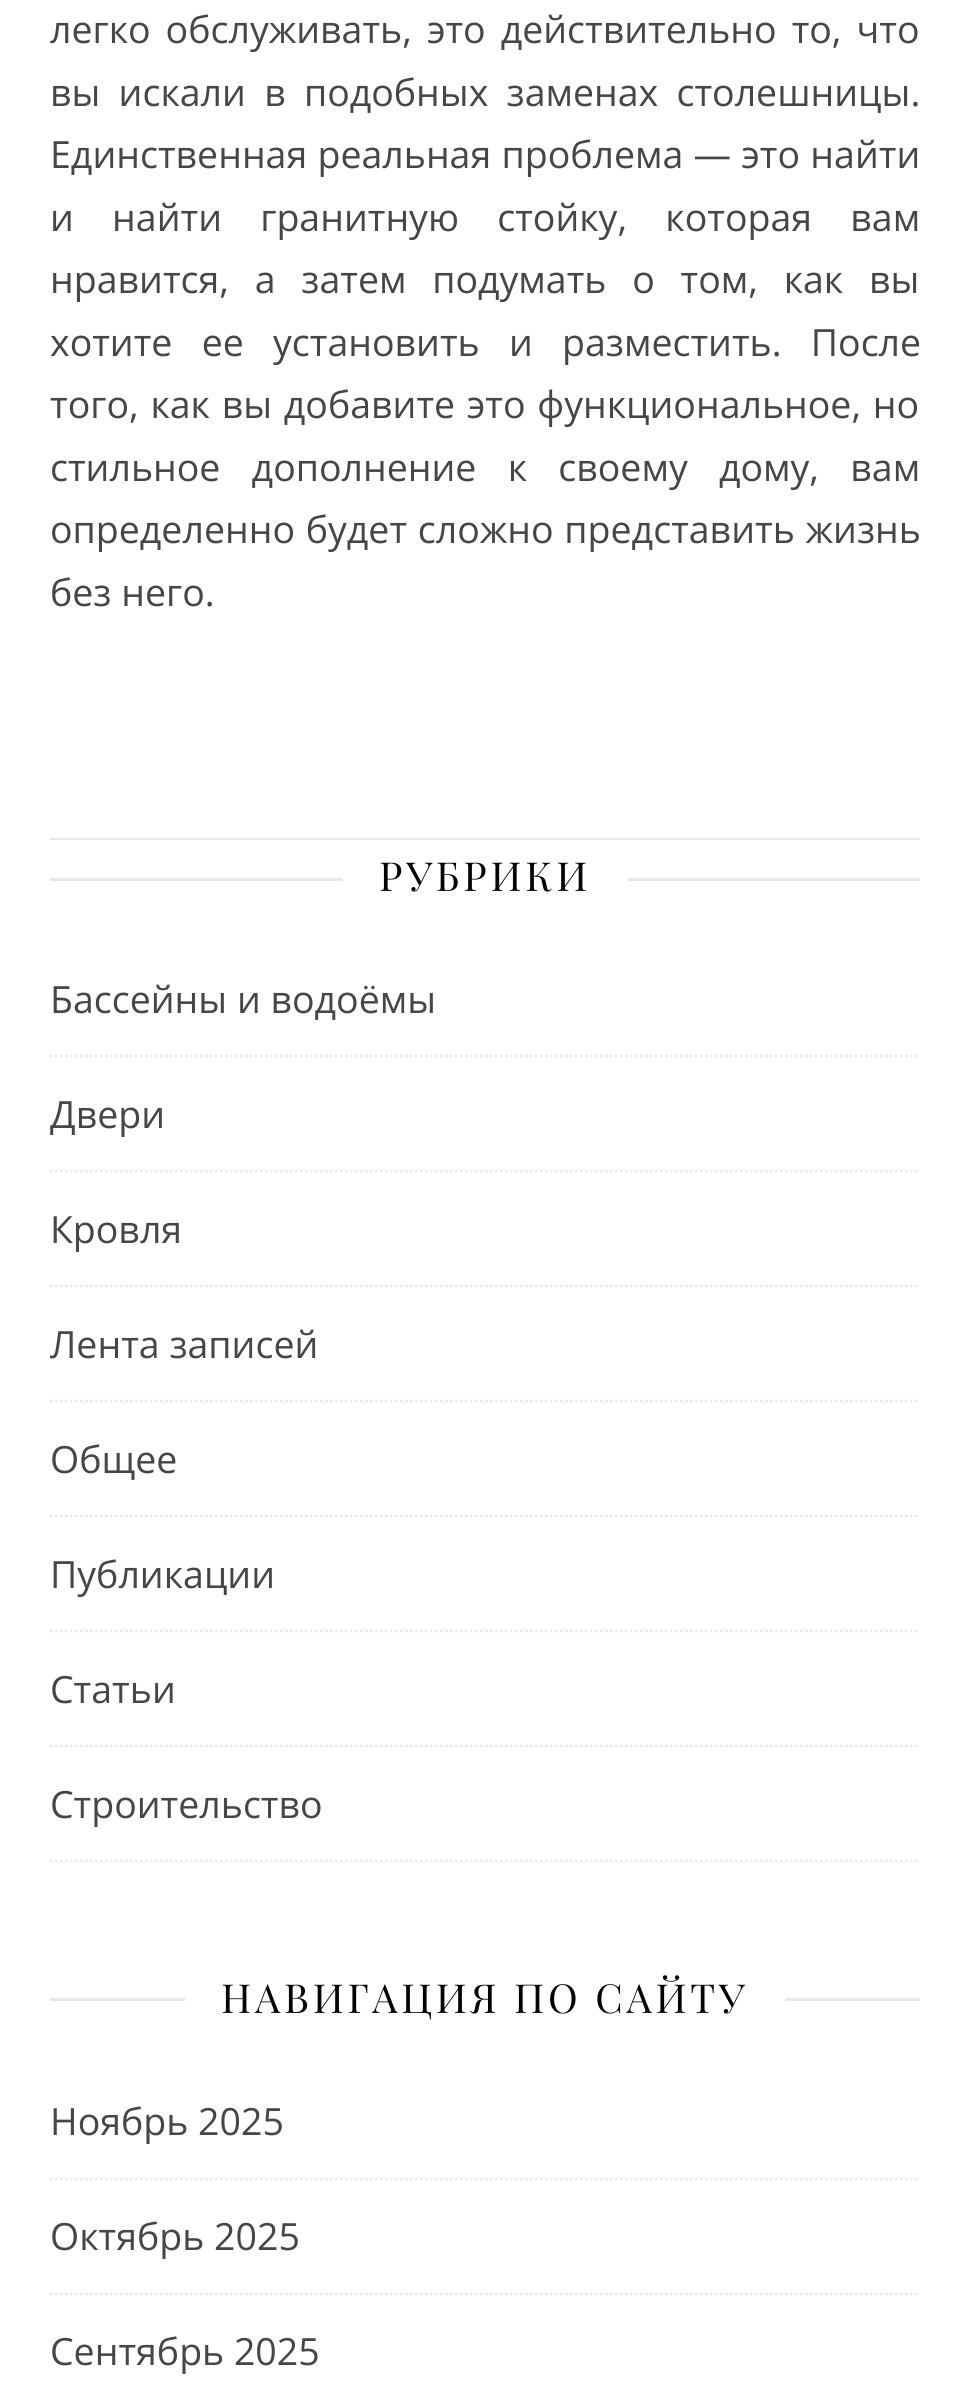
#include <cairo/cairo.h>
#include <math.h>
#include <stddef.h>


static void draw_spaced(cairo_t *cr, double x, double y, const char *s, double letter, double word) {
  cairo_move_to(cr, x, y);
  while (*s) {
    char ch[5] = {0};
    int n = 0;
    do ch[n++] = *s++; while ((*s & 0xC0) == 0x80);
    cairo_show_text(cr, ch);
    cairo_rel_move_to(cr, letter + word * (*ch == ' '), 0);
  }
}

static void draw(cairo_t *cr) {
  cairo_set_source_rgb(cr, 1, 1, 1);
  cairo_paint(cr);
  cairo_set_source_rgb(cr, 232 / 255.0, 232 / 255.0, 232 / 255.0);
  cairo_rectangle(cr, 50, 838, 870, 2);
  cairo_fill(cr);
  cairo_rectangle(cr, 50, 878, 293, 3);
  cairo_fill(cr);
  cairo_rectangle(cr, 628, 878, 292, 3);
  cairo_fill(cr);
  cairo_new_path(cr);
  cairo_move_to(cr, 50, 1056);
  cairo_line_to(cr, 920, 1056);
  cairo_set_line_width(cr, 2.5);
  cairo_set_dash(cr, (double[]){2.5, 2.5}, 2, 0);
  cairo_stroke(cr);
  cairo_new_path(cr);
  cairo_move_to(cr, 50, 1171);
  cairo_line_to(cr, 920, 1171);
  cairo_stroke(cr);
  cairo_new_path(cr);
  cairo_move_to(cr, 50, 1286);
  cairo_line_to(cr, 920, 1286);
  cairo_stroke(cr);
  cairo_new_path(cr);
  cairo_move_to(cr, 50, 1401);
  cairo_line_to(cr, 920, 1401);
  cairo_stroke(cr);
  cairo_new_path(cr);
  cairo_move_to(cr, 50, 1516);
  cairo_line_to(cr, 920, 1516);
  cairo_stroke(cr);
  cairo_new_path(cr);
  cairo_move_to(cr, 50, 1631);
  cairo_line_to(cr, 920, 1631);
  cairo_stroke(cr);
  cairo_new_path(cr);
  cairo_move_to(cr, 50, 1746);
  cairo_line_to(cr, 920, 1746);
  cairo_stroke(cr);
  cairo_new_path(cr);
  cairo_move_to(cr, 50, 1861);
  cairo_line_to(cr, 920, 1861);
  cairo_stroke(cr);
  cairo_rectangle(cr, 50, 1998, 135, 3);
  cairo_fill(cr);
  cairo_rectangle(cr, 785, 1998, 135, 3);
  cairo_fill(cr);
  cairo_new_path(cr);
  cairo_move_to(cr, 50, 2179);
  cairo_line_to(cr, 920, 2179);
  cairo_stroke(cr);
  cairo_new_path(cr);
  cairo_move_to(cr, 50, 2294);
  cairo_line_to(cr, 920, 2294);
  cairo_stroke(cr);
  cairo_select_font_face(cr, "Open Sans", CAIRO_FONT_SLANT_NORMAL, CAIRO_FONT_WEIGHT_NORMAL);
  cairo_set_font_size(cr, 37.5);
  cairo_set_source_rgb(cr, 70 / 255.0, 70 / 255.0, 70 / 255.0);
  draw_spaced(cr, 50, 43, "легко обслуживать, это действительно то, что", 0, 5.25);
  draw_spaced(cr, 50, 106, "вы искали в подобных заменах столешницы.", 0, 8.5);
  draw_spaced(cr, 50, 168, "Единственная реальная проблема — это найти", 0, 0.5);
  draw_spaced(cr, 50, 231, "и найти гранитную стойку, которая вам", 0, 28.5);
  draw_spaced(cr, 50, 293, "нравится, а затем подумать о том, как вы", 0, 16);
  draw_spaced(cr, 50, 356, "хотите ее установить и разместить. После", 0, 19.5);
  draw_spaced(cr, 50, 418, "того, как вы добавите это функциональное, но", 0, 2);
  draw_spaced(cr, 50, 481, "стильное дополнение к своему дому, вам", 0, 21.5);
  draw_spaced(cr, 50, 543, "определенно будет сложно представить жизнь", 0, 1);
  cairo_move_to(cr, 50, 606);
  cairo_show_text(cr, "без него.");
  cairo_select_font_face(cr, "Playfair Display", CAIRO_FONT_SLANT_NORMAL, CAIRO_FONT_WEIGHT_NORMAL);
  cairo_set_font_size(cr, 40);
  cairo_set_source_rgb(cr, 3 / 255.0, 3 / 255.0, 3 / 255.0);
  draw_spaced(cr, 379, 891, "РУБРИКИ", 3.75, 0);
  cairo_select_font_face(cr, "Open Sans", CAIRO_FONT_SLANT_NORMAL, CAIRO_FONT_WEIGHT_NORMAL);
  cairo_set_font_size(cr, 37.5);
  cairo_set_source_rgb(cr, 70 / 255.0, 70 / 255.0, 70 / 255.0);
  cairo_move_to(cr, 50, 1013);
  cairo_show_text(cr, "Бассейны и водоёмы");
  cairo_move_to(cr, 50, 1128);
  cairo_show_text(cr, "Двери");
  cairo_move_to(cr, 50, 1243);
  cairo_show_text(cr, "Кровля");
  cairo_move_to(cr, 50, 1358);
  cairo_show_text(cr, "Лента записей");
  cairo_move_to(cr, 50, 1473);
  cairo_show_text(cr, "Общее");
  cairo_move_to(cr, 50, 1588);
  cairo_show_text(cr, "Публикации");
  cairo_move_to(cr, 50, 1703);
  cairo_show_text(cr, "Статьи");
  cairo_move_to(cr, 50, 1818);
  cairo_show_text(cr, "Строительство");
  cairo_select_font_face(cr, "Playfair Display", CAIRO_FONT_SLANT_NORMAL, CAIRO_FONT_WEIGHT_NORMAL);
  cairo_set_font_size(cr, 40);
  cairo_set_source_rgb(cr, 3 / 255.0, 3 / 255.0, 3 / 255.0);
  draw_spaced(cr, 221, 2013, "НАВИГАЦИЯ ПО САЙТУ", 3.75, 0);
  cairo_select_font_face(cr, "Open Sans", CAIRO_FONT_SLANT_NORMAL, CAIRO_FONT_WEIGHT_NORMAL);
  cairo_set_font_size(cr, 37.5);
  cairo_set_source_rgb(cr, 70 / 255.0, 70 / 255.0, 70 / 255.0);
  cairo_move_to(cr, 50, 2135);
  cairo_show_text(cr, "Ноябрь 2025");
  cairo_move_to(cr, 50, 2250);
  cairo_show_text(cr, "Октябрь 2025");
  cairo_move_to(cr, 50, 2365);
  cairo_show_text(cr, "Сентябрь 2025");
}

int main(void) {
  cairo_surface_t *surface = cairo_image_surface_create(CAIRO_FORMAT_RGB24, 970, 2391);
  cairo_t *cr = cairo_create(surface);
  cairo_font_options_t *options = cairo_font_options_create();
  cairo_font_options_set_hint_metrics(options, CAIRO_HINT_METRICS_OFF);
  cairo_font_options_set_hint_style(options, CAIRO_HINT_STYLE_NONE);
  cairo_set_font_options(cr, options);
  cairo_set_miter_limit(cr, 4);
  draw(cr);
  cairo_surface_write_to_png(surface, "out.png");
  cairo_font_options_destroy(options);
  cairo_destroy(cr);
  cairo_surface_destroy(surface);
  return 0;
}
